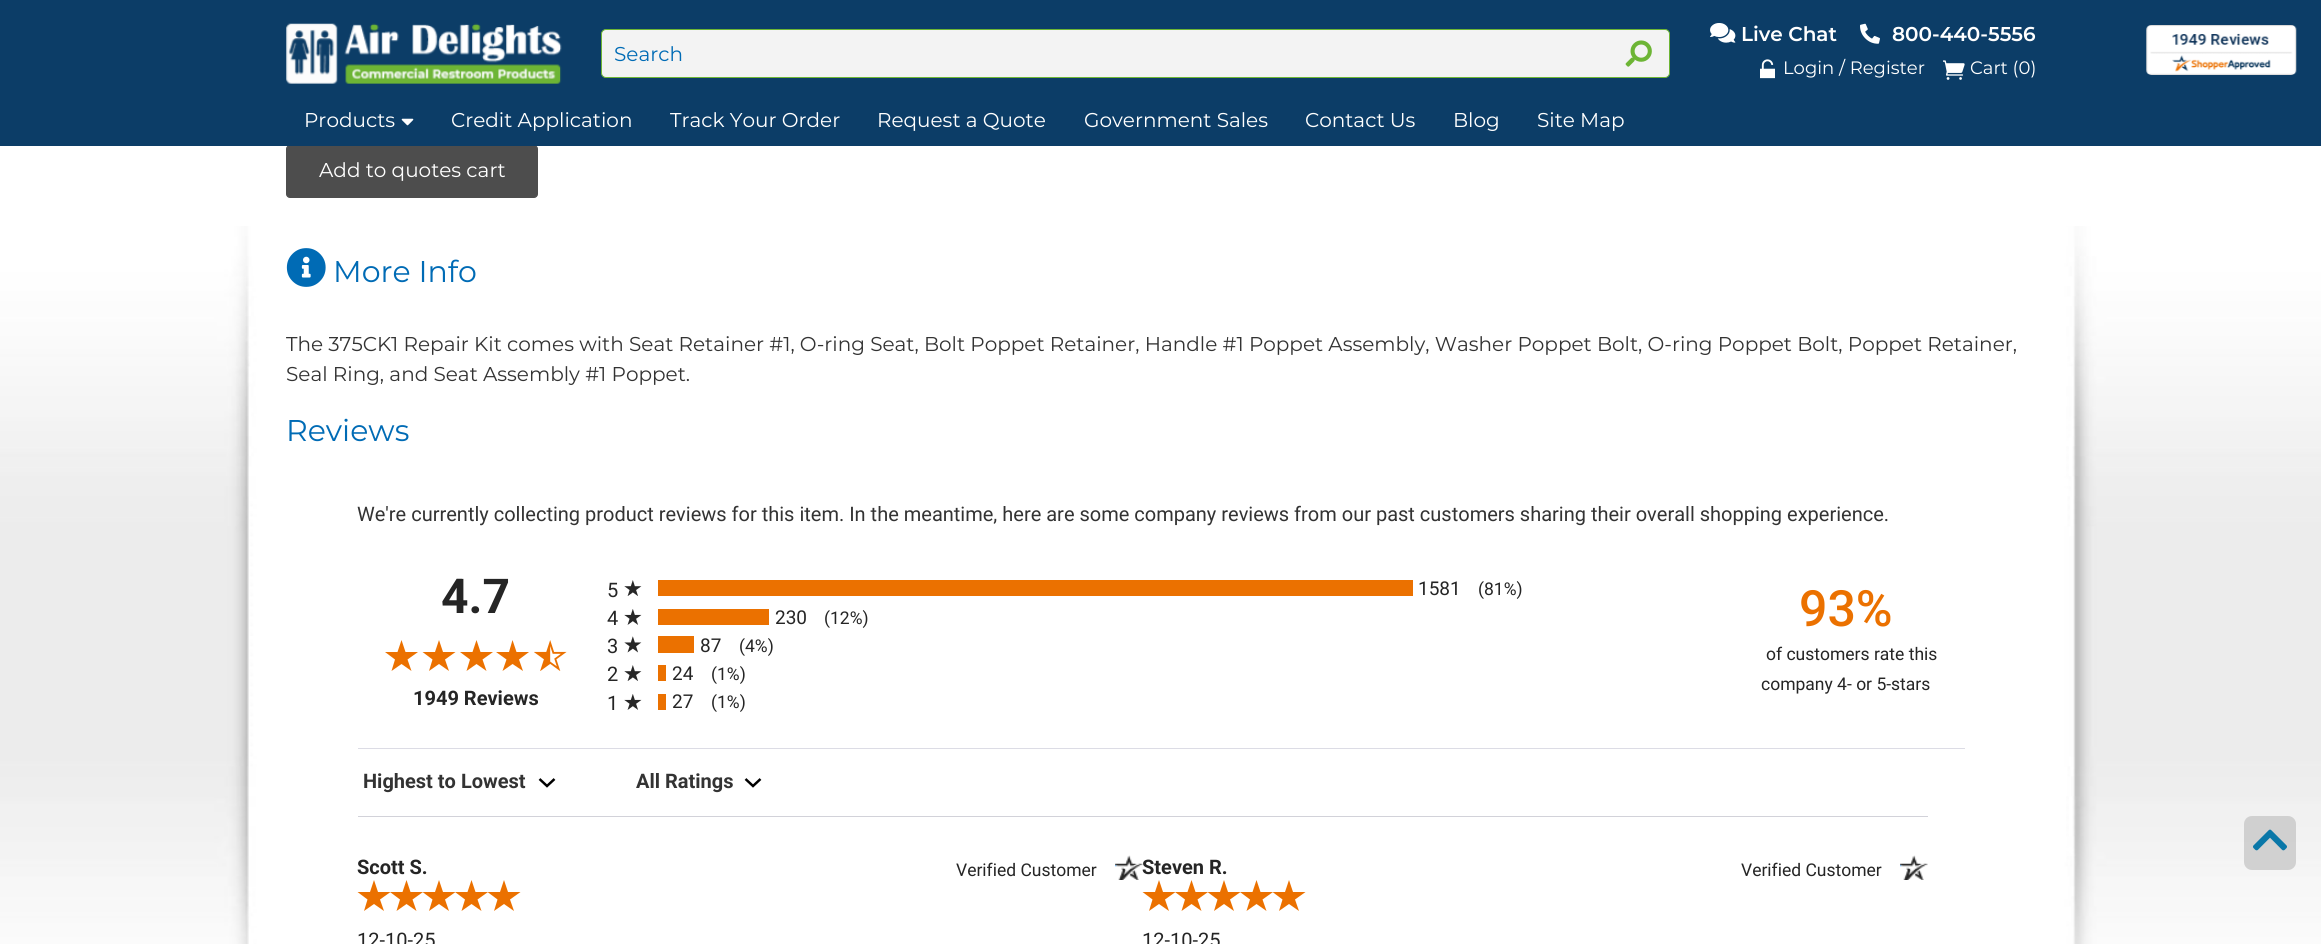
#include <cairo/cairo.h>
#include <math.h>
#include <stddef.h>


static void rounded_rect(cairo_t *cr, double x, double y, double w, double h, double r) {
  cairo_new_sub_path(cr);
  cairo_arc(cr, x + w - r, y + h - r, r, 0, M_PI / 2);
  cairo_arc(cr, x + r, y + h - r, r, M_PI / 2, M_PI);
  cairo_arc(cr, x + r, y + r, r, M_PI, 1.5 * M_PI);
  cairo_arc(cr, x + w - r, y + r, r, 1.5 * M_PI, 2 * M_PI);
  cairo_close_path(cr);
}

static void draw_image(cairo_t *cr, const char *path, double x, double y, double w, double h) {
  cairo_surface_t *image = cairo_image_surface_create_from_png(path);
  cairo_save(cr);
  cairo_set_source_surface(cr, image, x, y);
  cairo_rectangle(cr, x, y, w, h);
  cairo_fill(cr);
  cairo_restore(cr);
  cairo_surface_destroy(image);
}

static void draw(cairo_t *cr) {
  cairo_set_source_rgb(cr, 1, 1, 1);
  cairo_paint(cr);
  draw_image(cr, "images/1.png", 0, 226, 2321, 718);
  cairo_set_source_rgb(cr, 77 / 255.0, 77 / 255.0, 77 / 255.0);
  rounded_rect(cr, 286.5, 145.5, 251, 52, 3.5);
  cairo_fill_preserve(cr);
  cairo_set_line_width(cr, 1);
  cairo_stroke(cr);
  cairo_set_source_rgb(cr, 12 / 255.0, 61 / 255.0, 103 / 255.0);
  cairo_rectangle(cr, 0, 0, 2321, 146);
  cairo_fill(cr);
  draw_image(cr, "images/2.png", 286, 23, 276, 61);
  cairo_set_source_rgb(cr, 243 / 255.0, 243 / 255.0, 243 / 255.0);
  rounded_rect(cr, 601.5, 29.5, 1068, 48, 4.5);
  cairo_fill_preserve(cr);
  cairo_set_source_rgb(cr, 109 / 255.0, 181 / 255.0, 53 / 255.0);
  cairo_stroke(cr);
  draw_image(cr, "images/3.png", 1625, 40, 27, 27);
  draw_image(cr, "images/4.png", 1710, 23, 26, 20);
  draw_image(cr, "images/5.png", 1860, 23, 20, 21);
  draw_image(cr, "images/6.png", 2146, 25, 151, 50);
  draw_image(cr, "images/7.png", 1760, 59, 15, 20);
  draw_image(cr, "images/8.png", 1943, 60, 22, 20);
  draw_image(cr, "images/9.png", 401, 118, 13, 8);
  draw_image(cr, "images/10.png", 286, 248, 40, 39);
  cairo_set_source_rgb(cr, 235 / 255.0, 113 / 255.0, 0);
  cairo_new_path(cr);
  cairo_move_to(cr, 401.5, 640);
  cairo_line_to(cr, 405.5, 652);
  cairo_line_to(cr, 418, 652);
  cairo_line_to(cr, 407.5, 659.5);
  cairo_line_to(cr, 411.5, 671);
  cairo_line_to(cr, 401.5, 664);
  cairo_line_to(cr, 391.5, 671);
  cairo_line_to(cr, 395, 659.5);
  cairo_line_to(cr, 385, 652);
  cairo_line_to(cr, 397.5, 652);
  cairo_close_path(cr);
  cairo_fill(cr);
  cairo_new_path(cr);
  cairo_move_to(cr, 439, 640);
  cairo_line_to(cr, 443, 652);
  cairo_line_to(cr, 455.5, 652);
  cairo_line_to(cr, 445, 659.5);
  cairo_line_to(cr, 449, 671);
  cairo_line_to(cr, 439, 664);
  cairo_line_to(cr, 429, 671);
  cairo_line_to(cr, 432.5, 659.5);
  cairo_line_to(cr, 422.5, 652);
  cairo_line_to(cr, 435, 652);
  cairo_close_path(cr);
  cairo_fill(cr);
  cairo_new_path(cr);
  cairo_move_to(cr, 476.5, 640);
  cairo_line_to(cr, 480.5, 652);
  cairo_line_to(cr, 493, 652);
  cairo_line_to(cr, 482.5, 659.5);
  cairo_line_to(cr, 486.5, 671);
  cairo_line_to(cr, 476.5, 664);
  cairo_line_to(cr, 466.5, 671);
  cairo_line_to(cr, 470, 659.5);
  cairo_line_to(cr, 460, 652);
  cairo_line_to(cr, 472.5, 652);
  cairo_close_path(cr);
  cairo_fill(cr);
  cairo_new_path(cr);
  cairo_move_to(cr, 512.5, 640);
  cairo_line_to(cr, 516.5, 652);
  cairo_line_to(cr, 529, 652);
  cairo_line_to(cr, 519, 659.5);
  cairo_line_to(cr, 523, 671);
  cairo_line_to(cr, 512.5, 664);
  cairo_line_to(cr, 502.5, 671);
  cairo_line_to(cr, 506.5, 659.5);
  cairo_line_to(cr, 496, 652);
  cairo_line_to(cr, 509, 652);
  cairo_close_path(cr);
  cairo_fill(cr);
  draw_image(cr, "images/11.png", 534, 640, 33, 31);
  draw_image(cr, "images/12.png", 624, 580, 18, 16);
  cairo_rectangle(cr, 658, 580, 755, 16);
  cairo_fill(cr);
  draw_image(cr, "images/13.png", 624, 609, 18, 16);
  cairo_rectangle(cr, 658, 609, 111, 16);
  cairo_fill(cr);
  draw_image(cr, "images/14.png", 624, 636, 18, 17);
  cairo_rectangle(cr, 658, 636, 36, 17);
  cairo_fill(cr);
  draw_image(cr, "images/12.png", 624, 665, 18, 16);
  cairo_rectangle(cr, 658, 665, 8, 16);
  cairo_fill(cr);
  draw_image(cr, "images/13.png", 624, 694, 18, 16);
  cairo_rectangle(cr, 658, 694, 8, 16);
  cairo_fill(cr);
  cairo_set_source_rgb(cr, 220 / 255.0, 220 / 255.0, 229 / 255.0);
  cairo_rectangle(cr, 358, 748, 1607, 1);
  cairo_fill(cr);
  cairo_new_path(cr);
  cairo_move_to(cr, 554.5, 779);
  cairo_line_to(cr, 547, 786);
  cairo_line_to(cr, 539.5, 779);
  cairo_set_source_rgb(cr, 0, 0, 0);
  cairo_set_line_width(cr, 2.5);
  cairo_stroke(cr);
  cairo_new_path(cr);
  cairo_move_to(cr, 760.5, 779);
  cairo_line_to(cr, 753, 786);
  cairo_line_to(cr, 745.5, 779);
  cairo_stroke(cr);
  cairo_set_source_rgb(cr, 210 / 255.0, 210 / 255.0, 217 / 255.0);
  cairo_rectangle(cr, 358, 816, 1570, 1);
  cairo_fill(cr);
  draw_image(cr, "images/15.png", 1115, 855, 28, 25);
  cairo_set_source_rgb(cr, 235 / 255.0, 113 / 255.0, 0);
  cairo_new_path(cr);
  cairo_move_to(cr, 374, 880);
  cairo_line_to(cr, 378, 892);
  cairo_line_to(cr, 390.5, 892);
  cairo_line_to(cr, 380, 899.5);
  cairo_line_to(cr, 384, 911);
  cairo_line_to(cr, 374, 904);
  cairo_line_to(cr, 364, 911);
  cairo_line_to(cr, 367.5, 899.5);
  cairo_line_to(cr, 357.5, 892);
  cairo_line_to(cr, 370, 892);
  cairo_close_path(cr);
  cairo_fill(cr);
  cairo_new_path(cr);
  cairo_move_to(cr, 406.5, 880);
  cairo_line_to(cr, 410.5, 892);
  cairo_line_to(cr, 423, 892);
  cairo_line_to(cr, 412.5, 899.5);
  cairo_line_to(cr, 416.5, 911);
  cairo_line_to(cr, 406.5, 904);
  cairo_line_to(cr, 396.5, 911);
  cairo_line_to(cr, 400, 899.5);
  cairo_line_to(cr, 390, 892);
  cairo_line_to(cr, 402.5, 892);
  cairo_close_path(cr);
  cairo_fill(cr);
  cairo_new_path(cr);
  cairo_move_to(cr, 439, 880);
  cairo_line_to(cr, 443, 892);
  cairo_line_to(cr, 455.5, 892);
  cairo_line_to(cr, 445, 899.5);
  cairo_line_to(cr, 449, 911);
  cairo_line_to(cr, 439, 904);
  cairo_line_to(cr, 429, 911);
  cairo_line_to(cr, 432.5, 899.5);
  cairo_line_to(cr, 422.5, 892);
  cairo_line_to(cr, 435, 892);
  cairo_close_path(cr);
  cairo_fill(cr);
  cairo_new_path(cr);
  cairo_move_to(cr, 471.5, 880);
  cairo_line_to(cr, 475.5, 892);
  cairo_line_to(cr, 488, 892);
  cairo_line_to(cr, 477.5, 899.5);
  cairo_line_to(cr, 481.5, 911);
  cairo_line_to(cr, 471.5, 904);
  cairo_line_to(cr, 461.5, 911);
  cairo_line_to(cr, 465, 899.5);
  cairo_line_to(cr, 455, 892);
  cairo_line_to(cr, 467.5, 892);
  cairo_close_path(cr);
  cairo_fill(cr);
  cairo_new_path(cr);
  cairo_move_to(cr, 504, 880);
  cairo_line_to(cr, 508, 892);
  cairo_line_to(cr, 520.5, 892);
  cairo_line_to(cr, 510, 899.5);
  cairo_line_to(cr, 514, 911);
  cairo_line_to(cr, 504, 904);
  cairo_line_to(cr, 494, 911);
  cairo_line_to(cr, 497.5, 899.5);
  cairo_line_to(cr, 487.5, 892);
  cairo_line_to(cr, 500, 892);
  cairo_close_path(cr);
  cairo_fill(cr);
  draw_image(cr, "images/16.png", 1900, 855, 28, 25);
  cairo_new_path(cr);
  cairo_move_to(cr, 1159, 880);
  cairo_line_to(cr, 1163, 892);
  cairo_line_to(cr, 1175.5, 892);
  cairo_line_to(cr, 1165, 899.5);
  cairo_line_to(cr, 1169, 911);
  cairo_line_to(cr, 1159, 904);
  cairo_line_to(cr, 1149, 911);
  cairo_line_to(cr, 1152.5, 899.5);
  cairo_line_to(cr, 1142.5, 892);
  cairo_line_to(cr, 1155, 892);
  cairo_close_path(cr);
  cairo_fill(cr);
  cairo_new_path(cr);
  cairo_move_to(cr, 1191.5, 880);
  cairo_line_to(cr, 1195.5, 892);
  cairo_line_to(cr, 1208, 892);
  cairo_line_to(cr, 1197.5, 899.5);
  cairo_line_to(cr, 1201.5, 911);
  cairo_line_to(cr, 1191.5, 904);
  cairo_line_to(cr, 1181.5, 911);
  cairo_line_to(cr, 1185, 899.5);
  cairo_line_to(cr, 1175, 892);
  cairo_line_to(cr, 1187.5, 892);
  cairo_close_path(cr);
  cairo_fill(cr);
  cairo_new_path(cr);
  cairo_move_to(cr, 1224, 880);
  cairo_line_to(cr, 1228, 892);
  cairo_line_to(cr, 1240.5, 892);
  cairo_line_to(cr, 1230, 899.5);
  cairo_line_to(cr, 1234, 911);
  cairo_line_to(cr, 1224, 904);
  cairo_line_to(cr, 1214, 911);
  cairo_line_to(cr, 1217.5, 899.5);
  cairo_line_to(cr, 1207.5, 892);
  cairo_line_to(cr, 1220, 892);
  cairo_close_path(cr);
  cairo_fill(cr);
  cairo_new_path(cr);
  cairo_move_to(cr, 1256.5, 880);
  cairo_line_to(cr, 1260.5, 892);
  cairo_line_to(cr, 1273, 892);
  cairo_line_to(cr, 1262.5, 899.5);
  cairo_line_to(cr, 1266.5, 911);
  cairo_line_to(cr, 1256.5, 904);
  cairo_line_to(cr, 1246.5, 911);
  cairo_line_to(cr, 1250, 899.5);
  cairo_line_to(cr, 1240, 892);
  cairo_line_to(cr, 1252.5, 892);
  cairo_close_path(cr);
  cairo_fill(cr);
  cairo_new_path(cr);
  cairo_move_to(cr, 1289, 880);
  cairo_line_to(cr, 1293, 892);
  cairo_line_to(cr, 1305.5, 892);
  cairo_line_to(cr, 1295, 899.5);
  cairo_line_to(cr, 1299, 911);
  cairo_line_to(cr, 1289, 904);
  cairo_line_to(cr, 1279, 911);
  cairo_line_to(cr, 1282.5, 899.5);
  cairo_line_to(cr, 1272.5, 892);
  cairo_line_to(cr, 1285, 892);
  cairo_close_path(cr);
  cairo_fill(cr);
  cairo_set_source_rgba(cr, 200 / 255.0, 200 / 255.0, 200 / 255.0, 0.8);
  rounded_rect(cr, 2244, 816, 52, 54, 8);
  cairo_fill(cr);
  draw_image(cr, "images/17.png", 2253, 829, 34, 22);
  cairo_select_font_face(cr, "Montserrat", CAIRO_FONT_SLANT_NORMAL, CAIRO_FONT_WEIGHT_NORMAL);
  cairo_set_font_size(cr, 20);
  cairo_set_source_rgb(cr, 0, 107 / 255.0, 181 / 255.0);
  cairo_move_to(cr, 614, 61);
  cairo_show_text(cr, "Search");
  cairo_select_font_face(cr, "Montserrat SemiBold", CAIRO_FONT_SLANT_NORMAL, CAIRO_FONT_WEIGHT_NORMAL);
  cairo_set_source_rgb(cr, 1, 1, 1);
  cairo_move_to(cr, 1741, 41);
  cairo_show_text(cr, "Live Chat");
  cairo_move_to(cr, 1892, 41);
  cairo_show_text(cr, "800-440-5556");
  cairo_select_font_face(cr, "Montserrat", CAIRO_FONT_SLANT_NORMAL, CAIRO_FONT_WEIGHT_NORMAL);
  cairo_set_font_size(cr, 18);
  cairo_move_to(cr, 1783, 74);
  cairo_show_text(cr, "Login / Register");
  cairo_move_to(cr, 1970, 74);
  cairo_show_text(cr, "Cart (0)");
  cairo_set_font_size(cr, 20);
  cairo_move_to(cr, 304, 127);
  cairo_show_text(cr, "Products");
  cairo_move_to(cr, 451, 127);
  cairo_show_text(cr, "Credit Application");
  cairo_move_to(cr, 670, 127);
  cairo_show_text(cr, "Track Your Order");
  cairo_move_to(cr, 877, 127);
  cairo_show_text(cr, "Request a Quote");
  cairo_move_to(cr, 1084, 127);
  cairo_show_text(cr, "Government Sales");
  cairo_move_to(cr, 1305, 127);
  cairo_show_text(cr, "Contact Us");
  cairo_move_to(cr, 1453, 127);
  cairo_show_text(cr, "Blog");
  cairo_move_to(cr, 1537, 127);
  cairo_show_text(cr, "Site Map");
  cairo_move_to(cr, 319, 177);
  cairo_show_text(cr, "Add to quotes cart");
  cairo_set_font_size(cr, 30);
  cairo_set_source_rgb(cr, 0, 107 / 255.0, 181 / 255.0);
  cairo_move_to(cr, 333, 282);
  cairo_show_text(cr, "More Info");
  cairo_set_font_size(cr, 20);
  cairo_set_source_rgb(cr, 51 / 255.0, 51 / 255.0, 51 / 255.0);
  cairo_move_to(cr, 286, 351);
  cairo_show_text(cr, "The 375CK1 Repair Kit comes with Seat Retainer #1, O-ring Seat, Bolt Poppet Retainer, Handle #1 Poppet Assembly, Washer Poppet Bolt, O-ring Poppet Bolt, Poppet Retainer,");
  cairo_move_to(cr, 286, 381);
  cairo_show_text(cr, "Seal Ring, and Seat Assembly #1 Poppet.");
  cairo_set_font_size(cr, 30);
  cairo_set_source_rgb(cr, 0, 107 / 255.0, 181 / 255.0);
  cairo_move_to(cr, 286, 441);
  cairo_show_text(cr, "Reviews");
  cairo_select_font_face(cr, "Roboto", CAIRO_FONT_SLANT_NORMAL, CAIRO_FONT_WEIGHT_NORMAL);
  cairo_set_font_size(cr, 20);
  cairo_set_source_rgb(cr, 51 / 255.0, 51 / 255.0, 51 / 255.0);
  cairo_move_to(cr, 357, 521);
  cairo_show_text(cr, "We're currently collecting product reviews for this item. In the meantime, here are some company reviews from our past customers sharing their overall shopping experience.");
  cairo_select_font_face(cr, "Roboto", CAIRO_FONT_SLANT_NORMAL, CAIRO_FONT_WEIGHT_BOLD);
  cairo_set_font_size(cr, 48);
  cairo_set_source_rgb(cr, 37 / 255.0, 37 / 255.0, 37 / 255.0);
  cairo_move_to(cr, 441, 613);
  cairo_show_text(cr, "4.7");
  cairo_set_font_size(cr, 20);
  cairo_move_to(cr, 413, 705);
  cairo_show_text(cr, "1949 Reviews");
  cairo_select_font_face(cr, "Roboto", CAIRO_FONT_SLANT_NORMAL, CAIRO_FONT_WEIGHT_NORMAL);
  cairo_move_to(cr, 607, 597);
  cairo_show_text(cr, "5");
  cairo_set_font_size(cr, 19);
  cairo_move_to(cr, 1418, 595);
  cairo_show_text(cr, "1581");
  cairo_set_font_size(cr, 17.5);
  cairo_move_to(cr, 1478, 595);
  cairo_show_text(cr, "(81%)");
  cairo_set_font_size(cr, 20);
  cairo_move_to(cr, 607, 625);
  cairo_show_text(cr, "4");
  cairo_set_font_size(cr, 19);
  cairo_move_to(cr, 775, 624);
  cairo_show_text(cr, "230");
  cairo_set_font_size(cr, 17.5);
  cairo_move_to(cr, 824, 624);
  cairo_show_text(cr, "(12%)");
  cairo_set_font_size(cr, 20);
  cairo_move_to(cr, 607, 653);
  cairo_show_text(cr, "3");
  cairo_set_font_size(cr, 19);
  cairo_move_to(cr, 700, 652);
  cairo_show_text(cr, "87");
  cairo_set_font_size(cr, 17.5);
  cairo_move_to(cr, 739, 652);
  cairo_show_text(cr, "(4%)");
  cairo_set_font_size(cr, 20);
  cairo_move_to(cr, 607, 681);
  cairo_show_text(cr, "2");
  cairo_set_font_size(cr, 19);
  cairo_move_to(cr, 672, 680);
  cairo_show_text(cr, "24");
  cairo_set_font_size(cr, 17.5);
  cairo_move_to(cr, 711, 680);
  cairo_show_text(cr, "(1%)");
  cairo_set_font_size(cr, 20);
  cairo_move_to(cr, 607, 710);
  cairo_show_text(cr, "1");
  cairo_set_font_size(cr, 19);
  cairo_move_to(cr, 672, 708);
  cairo_show_text(cr, "27");
  cairo_set_font_size(cr, 17.5);
  cairo_move_to(cr, 711, 708);
  cairo_show_text(cr, "(1%)");
  cairo_select_font_face(cr, "Roboto Medium", CAIRO_FONT_SLANT_NORMAL, CAIRO_FONT_WEIGHT_NORMAL);
  cairo_set_font_size(cr, 50);
  cairo_set_source_rgb(cr, 235 / 255.0, 113 / 255.0, 0);
  cairo_move_to(cr, 1799, 626);
  cairo_show_text(cr, "93%");
  cairo_select_font_face(cr, "Roboto", CAIRO_FONT_SLANT_NORMAL, CAIRO_FONT_WEIGHT_NORMAL);
  cairo_set_font_size(cr, 17.5);
  cairo_set_source_rgb(cr, 37 / 255.0, 37 / 255.0, 37 / 255.0);
  cairo_move_to(cr, 1766, 660);
  cairo_show_text(cr, "of customers rate this");
  cairo_move_to(cr, 1761, 690);
  cairo_show_text(cr, "company 4- or 5-stars");
  cairo_select_font_face(cr, "Roboto", CAIRO_FONT_SLANT_NORMAL, CAIRO_FONT_WEIGHT_BOLD);
  cairo_set_font_size(cr, 20);
  cairo_set_source_rgb(cr, 51 / 255.0, 51 / 255.0, 51 / 255.0);
  cairo_move_to(cr, 363, 788);
  cairo_show_text(cr, "Highest to Lowest");
  cairo_move_to(cr, 636, 788);
  cairo_show_text(cr, "All Ratings");
  cairo_set_source_rgb(cr, 37 / 255.0, 37 / 255.0, 37 / 255.0);
  cairo_move_to(cr, 357, 874);
  cairo_show_text(cr, "Scott S.");
  cairo_select_font_face(cr, "Roboto", CAIRO_FONT_SLANT_NORMAL, CAIRO_FONT_WEIGHT_NORMAL);
  cairo_set_font_size(cr, 17.5);
  cairo_move_to(cr, 956, 876);
  cairo_show_text(cr, "Verified Customer");
  cairo_set_font_size(cr, 20);
  cairo_move_to(cr, 357, 947);
  cairo_show_text(cr, "12-10-25");
  cairo_select_font_face(cr, "Roboto", CAIRO_FONT_SLANT_NORMAL, CAIRO_FONT_WEIGHT_BOLD);
  cairo_move_to(cr, 1142, 874);
  cairo_show_text(cr, "Steven R.");
  cairo_select_font_face(cr, "Roboto", CAIRO_FONT_SLANT_NORMAL, CAIRO_FONT_WEIGHT_NORMAL);
  cairo_set_font_size(cr, 17.5);
  cairo_move_to(cr, 1741, 876);
  cairo_show_text(cr, "Verified Customer");
  cairo_set_font_size(cr, 20);
  cairo_move_to(cr, 1142, 947);
  cairo_show_text(cr, "12-10-25");
}

int main(void) {
  cairo_surface_t *surface = cairo_image_surface_create(CAIRO_FORMAT_RGB24, 2321, 944);
  cairo_t *cr = cairo_create(surface);
  cairo_font_options_t *options = cairo_font_options_create();
  cairo_font_options_set_hint_metrics(options, CAIRO_HINT_METRICS_OFF);
  cairo_font_options_set_hint_style(options, CAIRO_HINT_STYLE_NONE);
  cairo_set_font_options(cr, options);
  cairo_set_miter_limit(cr, 4);
  draw(cr);
  cairo_surface_write_to_png(surface, "out.png");
  cairo_font_options_destroy(options);
  cairo_destroy(cr);
  cairo_surface_destroy(surface);
  return 0;
}
